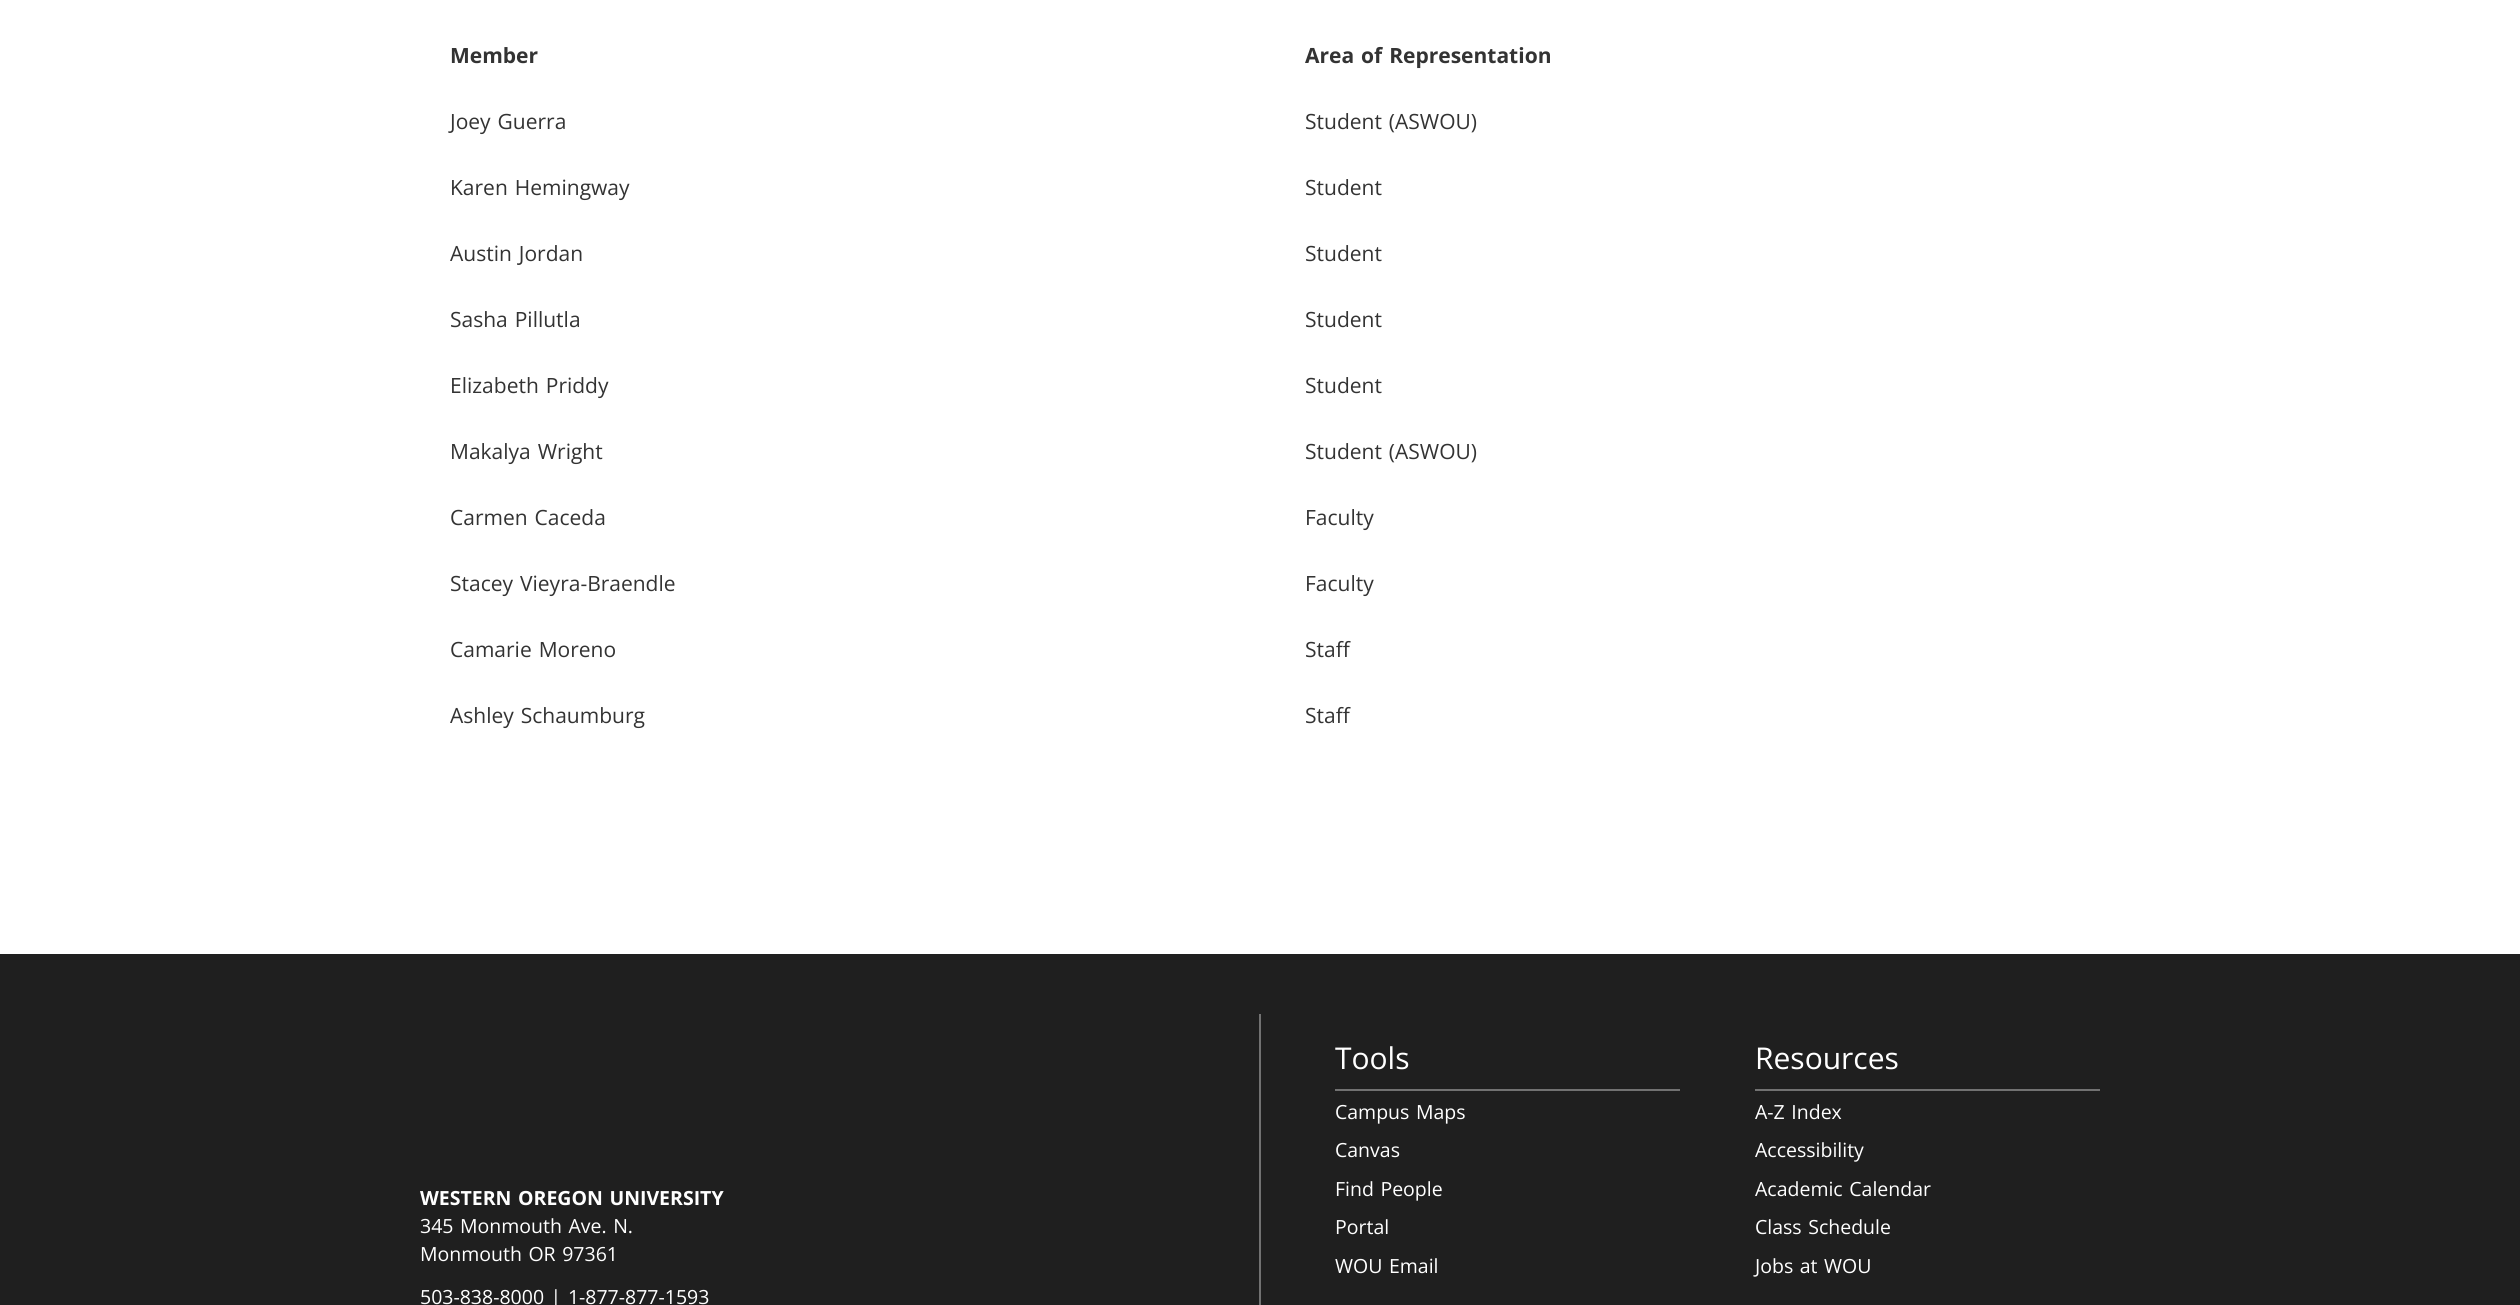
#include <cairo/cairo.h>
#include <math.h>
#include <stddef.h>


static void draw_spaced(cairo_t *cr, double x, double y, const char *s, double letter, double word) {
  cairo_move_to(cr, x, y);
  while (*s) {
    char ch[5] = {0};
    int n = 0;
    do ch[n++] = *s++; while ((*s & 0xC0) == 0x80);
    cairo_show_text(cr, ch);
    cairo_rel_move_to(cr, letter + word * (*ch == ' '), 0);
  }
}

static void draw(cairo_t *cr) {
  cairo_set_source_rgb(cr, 1, 1, 1);
  cairo_paint(cr);
  cairo_set_source_rgb(cr, 31 / 255.0, 31 / 255.0, 31 / 255.0);
  cairo_rectangle(cr, 0, 954, 2520, 351);
  cairo_fill(cr);
  cairo_set_source_rgb(cr, 114 / 255.0, 114 / 255.0, 114 / 255.0);
  cairo_rectangle(cr, 1259, 1014, 2, 291);
  cairo_fill(cr);
  cairo_rectangle(cr, 1335, 1089, 345, 2);
  cairo_fill(cr);
  cairo_rectangle(cr, 1755, 1089, 345, 2);
  cairo_fill(cr);
  cairo_select_font_face(cr, "Open Sans", CAIRO_FONT_SLANT_NORMAL, CAIRO_FONT_WEIGHT_BOLD);
  cairo_set_font_size(cr, 21);
  cairo_set_source_rgb(cr, 51 / 255.0, 51 / 255.0, 51 / 255.0);
  cairo_move_to(cr, 450, 63);
  cairo_show_text(cr, "Member");
  cairo_select_font_face(cr, "Open Sans", CAIRO_FONT_SLANT_NORMAL, CAIRO_FONT_WEIGHT_NORMAL);
  draw_spaced(cr, 450, 129, "Joey Guerra", 0, 1.5);
  draw_spaced(cr, 450, 195, "Karen Hemingway", 0, 1.5);
  draw_spaced(cr, 450, 261, "Austin Jordan", 0, 1.5);
  draw_spaced(cr, 450, 327, "Sasha Pillutla", 0, 1.5);
  draw_spaced(cr, 450, 393, "Elizabeth Priddy", 0, 1.5);
  draw_spaced(cr, 450, 459, "Makalya Wright", 0, 1.5);
  draw_spaced(cr, 450, 525, "Carmen Caceda", 0, 1.5);
  draw_spaced(cr, 450, 591, "Stacey Vieyra-Braendle", 0, 1.5);
  draw_spaced(cr, 450, 657, "Camarie Moreno", 0, 1.5);
  draw_spaced(cr, 450, 723, "Ashley Schaumburg", 0, 1.5);
  cairo_select_font_face(cr, "Open Sans", CAIRO_FONT_SLANT_NORMAL, CAIRO_FONT_WEIGHT_BOLD);
  draw_spaced(cr, 1305, 63, "Area of Representation", 0, 1.5);
  cairo_select_font_face(cr, "Open Sans", CAIRO_FONT_SLANT_NORMAL, CAIRO_FONT_WEIGHT_NORMAL);
  draw_spaced(cr, 1305, 129, "Student (ASWOU)", 0, 1.5);
  cairo_move_to(cr, 1305, 195);
  cairo_show_text(cr, "Student");
  cairo_move_to(cr, 1305, 261);
  cairo_show_text(cr, "Student");
  cairo_move_to(cr, 1305, 327);
  cairo_show_text(cr, "Student");
  cairo_move_to(cr, 1305, 393);
  cairo_show_text(cr, "Student");
  draw_spaced(cr, 1305, 459, "Student (ASWOU)", 0, 1.5);
  cairo_move_to(cr, 1305, 525);
  cairo_show_text(cr, "Faculty");
  cairo_move_to(cr, 1305, 591);
  cairo_show_text(cr, "Faculty");
  cairo_move_to(cr, 1305, 657);
  cairo_show_text(cr, "Staff");
  cairo_move_to(cr, 1305, 723);
  cairo_show_text(cr, "Staff");
  cairo_select_font_face(cr, "Open Sans", CAIRO_FONT_SLANT_NORMAL, CAIRO_FONT_WEIGHT_BOLD);
  cairo_set_font_size(cr, 19.5);
  cairo_set_source_rgb(cr, 1, 1, 1);
  draw_spaced(cr, 420, 1205, "WESTERN OREGON UNIVERSITY", 0, 1.5);
  cairo_select_font_face(cr, "Open Sans", CAIRO_FONT_SLANT_NORMAL, CAIRO_FONT_WEIGHT_NORMAL);
  draw_spaced(cr, 420, 1233, "345 Monmouth Ave. N.", 0, 1.5);
  draw_spaced(cr, 420, 1261, "Monmouth OR 97361", 0, 1.5);
  draw_spaced(cr, 420, 1304, "503-838-8000 | 1-877-877-1593", 0, 1.5);
  cairo_set_font_size(cr, 30);
  cairo_move_to(cr, 1335, 1069);
  cairo_show_text(cr, "Tools");
  cairo_set_font_size(cr, 19.5);
  draw_spaced(cr, 1335, 1119, "Campus Maps", 0, 1.5);
  cairo_move_to(cr, 1335, 1157);
  cairo_show_text(cr, "Canvas");
  draw_spaced(cr, 1335, 1196, "Find People", 0, 1.5);
  cairo_move_to(cr, 1335, 1234);
  cairo_show_text(cr, "Portal");
  draw_spaced(cr, 1335, 1273, "WOU Email", 0, 1.5);
  cairo_set_font_size(cr, 30);
  cairo_move_to(cr, 1755, 1069);
  cairo_show_text(cr, "Resources");
  cairo_set_font_size(cr, 19.5);
  draw_spaced(cr, 1755, 1119, "A-Z Index", 0, 1.5);
  cairo_move_to(cr, 1755, 1157);
  cairo_show_text(cr, "Accessibility");
  draw_spaced(cr, 1755, 1196, "Academic Calendar", 0, 1.5);
  draw_spaced(cr, 1755, 1234, "Class Schedule", 0, 1.5);
  draw_spaced(cr, 1755, 1273, "Jobs at WOU", 0, 1.5);
}

int main(void) {
  cairo_surface_t *surface = cairo_image_surface_create(CAIRO_FORMAT_RGB24, 2520, 1305);
  cairo_t *cr = cairo_create(surface);
  cairo_font_options_t *options = cairo_font_options_create();
  cairo_font_options_set_hint_metrics(options, CAIRO_HINT_METRICS_OFF);
  cairo_font_options_set_hint_style(options, CAIRO_HINT_STYLE_NONE);
  cairo_set_font_options(cr, options);
  cairo_set_miter_limit(cr, 4);
  draw(cr);
  cairo_surface_write_to_png(surface, "out.png");
  cairo_font_options_destroy(options);
  cairo_destroy(cr);
  cairo_surface_destroy(surface);
  return 0;
}
